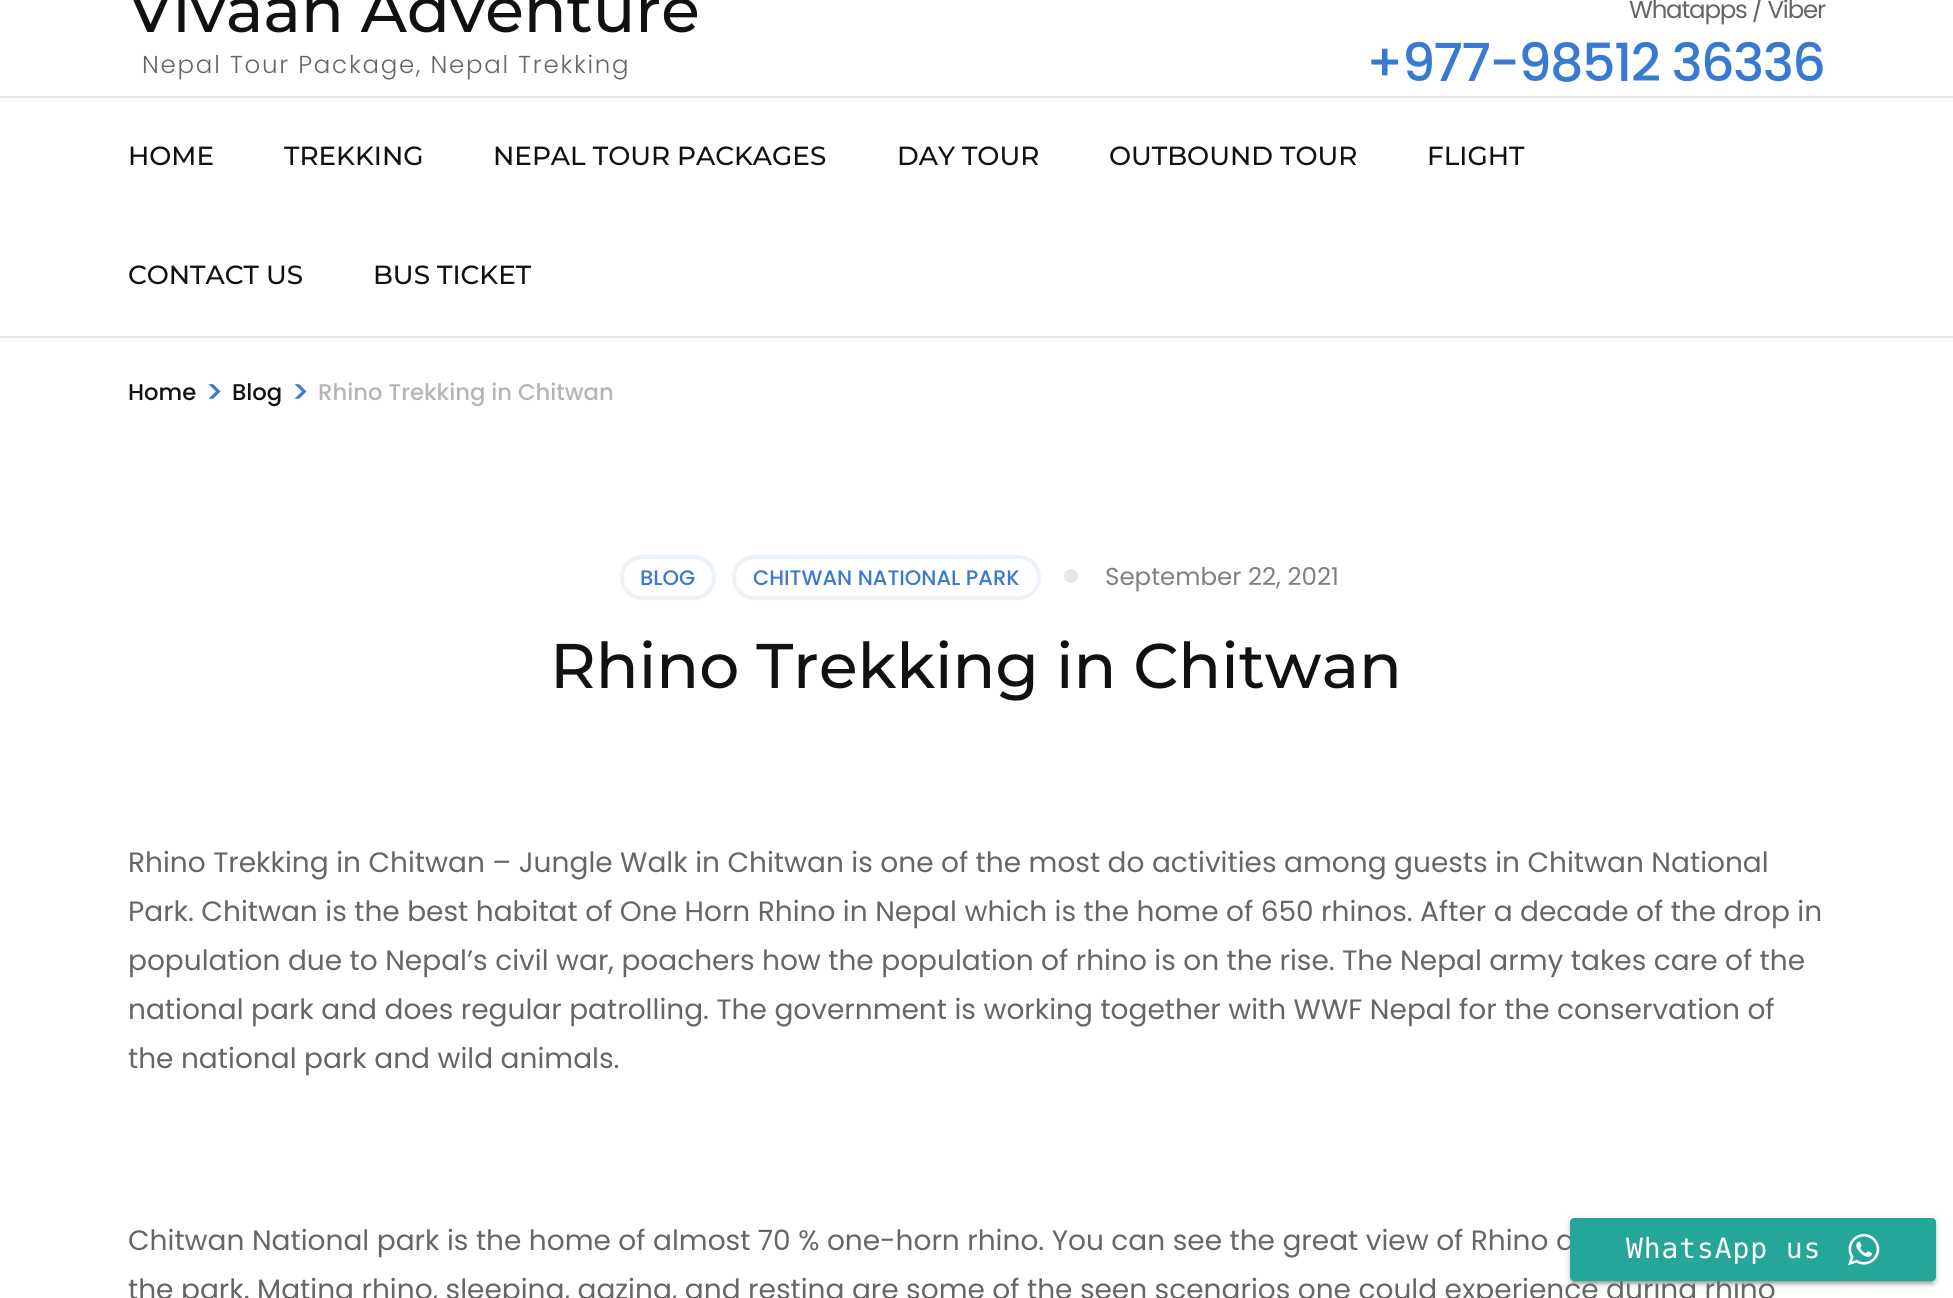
#include <cairo/cairo.h>
#include <math.h>
#include <stddef.h>


static void draw_spaced(cairo_t *cr, double x, double y, const char *s, double letter, double word) {
  cairo_move_to(cr, x, y);
  while (*s) {
    char ch[5] = {0};
    int n = 0;
    do ch[n++] = *s++; while ((*s & 0xC0) == 0x80);
    cairo_show_text(cr, ch);
    cairo_rel_move_to(cr, letter + word * (*ch == ' '), 0);
  }
}

static void rounded_rect(cairo_t *cr, double x, double y, double w, double h, double r) {
  cairo_new_sub_path(cr);
  cairo_arc(cr, x + w - r, y + h - r, r, 0, M_PI / 2);
  cairo_arc(cr, x + r, y + h - r, r, M_PI / 2, M_PI);
  cairo_arc(cr, x + r, y + r, r, M_PI, 1.5 * M_PI);
  cairo_arc(cr, x + w - r, y + r, r, 1.5 * M_PI, 2 * M_PI);
  cairo_close_path(cr);
}

static void draw_shadow(cairo_t *cr, double x, double y, double w, double h, double r, double blur, double alpha) {
  cairo_push_group_with_content(cr, CAIRO_CONTENT_ALPHA);
  cairo_set_operator(cr, CAIRO_OPERATOR_SOURCE);
  for (int i = 15; i >= -15 && fmin(w, h) + blur * i / 3 > 0; i -= 2) {
    double e = blur * i / 6;
    cairo_set_source_rgba(cr, 0, 0, 0, alpha * erfc((i - 1) / 8.5) / 2);
    rounded_rect(cr, x - e, y - e, w + 2 * e, h + 2 * e, fmax(0, fmin(r + e + blur * .6, fmin(w, h) / 2 + e)));
    cairo_fill(cr);
  }
  cairo_pattern_t *soft = cairo_pop_group(cr);
  cairo_mask(cr, soft);
  cairo_pattern_destroy(soft);
}

static void draw_image(cairo_t *cr, const char *path, double x, double y, double w, double h) {
  cairo_surface_t *image = cairo_image_surface_create_from_png(path);
  cairo_save(cr);
  cairo_set_source_surface(cr, image, x, y);
  cairo_rectangle(cr, x, y, w, h);
  cairo_fill(cr);
  cairo_restore(cr);
  cairo_surface_destroy(image);
}

static void draw(cairo_t *cr) {
  cairo_set_source_rgb(cr, 1, 1, 1);
  cairo_paint(cr);
  cairo_set_source_rgb(cr, 229 / 255.0, 229 / 255.0, 229 / 255.0);
  cairo_rectangle(cr, 0, 96, 1953, 2);
  cairo_fill(cr);
  cairo_rectangle(cr, 0, 336, 1953, 2);
  cairo_fill(cr);
  rounded_rect(cr, 622, 557, 92, 41, 20.5);
  cairo_set_source_rgb(cr, 235 / 255.0, 242 / 255.0, 250 / 255.0);
  cairo_set_line_width(cr, 4);
  cairo_stroke(cr);
  rounded_rect(cr, 734, 557, 305, 41, 20.5);
  cairo_stroke(cr);
  cairo_set_source_rgb(cr, 230 / 255.0, 230 / 255.0, 230 / 255.0);
  cairo_arc(cr, 1071, 576, 7, 0, 2 * M_PI);
  cairo_fill(cr);
  cairo_set_source_rgb(cr, 0, 0, 0);
  draw_shadow(cr, 1573, 1227, 359, 56, 0, 1, 0.2);
  draw_shadow(cr, 1570, 1220, 366, 63, 4, 4.5, 0.12);
  draw_shadow(cr, 1570, 1222, 366, 63, 4, 2, 0.14);
  cairo_select_font_face(cr, "Montserrat Medium", CAIRO_FONT_SLANT_NORMAL, CAIRO_FONT_WEIGHT_NORMAL);
  cairo_set_font_size(cr, 63);
  cairo_set_source_rgb(cr, 17 / 255.0, 17 / 255.0, 17 / 255.0);
  cairo_move_to(cr, 128, 32);
  cairo_show_text(cr, "Vivaan Adventure");
  cairo_select_font_face(cr, "Poppins Light", CAIRO_FONT_SLANT_NORMAL, CAIRO_FONT_WEIGHT_NORMAL);
  cairo_set_font_size(cr, 24.5);
  cairo_set_source_rgb(cr, 102 / 255.0, 102 / 255.0, 102 / 255.0);
  draw_spaced(cr, 142, 73, "Nepal Tour Package, Nepal Trekking", 1.75, 0);
  cairo_select_font_face(cr, "Poppins", CAIRO_FONT_SLANT_NORMAL, CAIRO_FONT_WEIGHT_NORMAL);
  draw_spaced(cr, 1629, 18, "Whatapps / Viber", -1.25, 0);
  cairo_select_font_face(cr, "Poppins Medium", CAIRO_FONT_SLANT_NORMAL, CAIRO_FONT_WEIGHT_NORMAL);
  cairo_set_font_size(cr, 52.5);
  cairo_set_source_rgb(cr, 56 / 255.0, 122 / 255.0, 209 / 255.0);
  draw_spaced(cr, 1366, 81, "+977-98512 36336", -1.6, 0);
  cairo_select_font_face(cr, "Montserrat Medium", CAIRO_FONT_SLANT_NORMAL, CAIRO_FONT_WEIGHT_NORMAL);
  cairo_set_font_size(cr, 26.25);
  cairo_set_source_rgb(cr, 17 / 255.0, 17 / 255.0, 17 / 255.0);
  cairo_move_to(cr, 128, 165);
  cairo_show_text(cr, "HOME");
  cairo_move_to(cr, 284, 165);
  cairo_show_text(cr, "TREKKING");
  cairo_move_to(cr, 493, 165);
  cairo_show_text(cr, "NEPAL TOUR PACKAGES");
  cairo_move_to(cr, 897, 165);
  cairo_show_text(cr, "DAY TOUR");
  cairo_move_to(cr, 1109, 165);
  cairo_show_text(cr, "OUTBOUND TOUR");
  cairo_move_to(cr, 1427, 165);
  cairo_show_text(cr, "FLIGHT");
  cairo_move_to(cr, 128, 284);
  cairo_show_text(cr, "CONTACT US");
  cairo_move_to(cr, 373, 284);
  cairo_show_text(cr, "BUS TICKET");
  cairo_select_font_face(cr, "Poppins Medium", CAIRO_FONT_SLANT_NORMAL, CAIRO_FONT_WEIGHT_NORMAL);
  cairo_set_font_size(cr, 22.75);
  cairo_move_to(cr, 128, 400);
  cairo_show_text(cr, "Home");
  cairo_set_font_size(cr, 32);
  cairo_set_source_rgb(cr, 56 / 255.0, 122 / 255.0, 209 / 255.0);
  cairo_move_to(cr, 205, 403);
  cairo_show_text(cr, ">");
  cairo_set_font_size(cr, 22.75);
  cairo_set_source_rgb(cr, 17 / 255.0, 17 / 255.0, 17 / 255.0);
  cairo_move_to(cr, 232, 400);
  cairo_show_text(cr, "Blog");
  cairo_set_font_size(cr, 32);
  cairo_set_source_rgb(cr, 56 / 255.0, 122 / 255.0, 209 / 255.0);
  cairo_move_to(cr, 291, 403);
  cairo_show_text(cr, ">");
  cairo_set_font_size(cr, 22.75);
  cairo_set_source_rgb(cr, 181 / 255.0, 181 / 255.0, 181 / 255.0);
  cairo_move_to(cr, 318, 400);
  cairo_show_text(cr, "Rhino Trekking in Chitwan");
  cairo_set_font_size(cr, 21);
  cairo_set_source_rgb(cr, 56 / 255.0, 122 / 255.0, 209 / 255.0);
  cairo_move_to(cr, 640, 585);
  cairo_show_text(cr, "BLOG");
  cairo_move_to(cr, 753, 585);
  cairo_show_text(cr, "CHITWAN NATIONAL PARK");
  cairo_select_font_face(cr, "Poppins", CAIRO_FONT_SLANT_NORMAL, CAIRO_FONT_WEIGHT_NORMAL);
  cairo_set_font_size(cr, 24.5);
  cairo_set_source_rgb(cr, 128 / 255.0, 128 / 255.0, 128 / 255.0);
  cairo_move_to(cr, 1105, 585);
  cairo_show_text(cr, "September 22, 2021");
  cairo_select_font_face(cr, "Montserrat Medium", CAIRO_FONT_SLANT_NORMAL, CAIRO_FONT_WEIGHT_NORMAL);
  cairo_set_font_size(cr, 63);
  cairo_set_source_rgb(cr, 17 / 255.0, 17 / 255.0, 17 / 255.0);
  cairo_move_to(cr, 550, 688);
  cairo_show_text(cr, "Rhino Trekking in Chitwan");
  cairo_select_font_face(cr, "Poppins", CAIRO_FONT_SLANT_NORMAL, CAIRO_FONT_WEIGHT_NORMAL);
  cairo_set_font_size(cr, 28);
  cairo_set_source_rgb(cr, 102 / 255.0, 102 / 255.0, 102 / 255.0);
  cairo_move_to(cr, 128, 872);
  cairo_show_text(cr, "Rhino Trekking in Chitwan – Jungle Walk in Chitwan is one of the most do activities among guests in Chitwan National");
  cairo_move_to(cr, 128, 921);
  cairo_show_text(cr, "Park. Chitwan is the best habitat of One Horn Rhino in Nepal which is the home of 650 rhinos. After a decade of the drop in");
  cairo_move_to(cr, 128, 970);
  cairo_show_text(cr, "population due to Nepal’s civil war, poachers how the population of rhino is on the rise. The Nepal army takes care of the");
  cairo_move_to(cr, 128, 1019);
  cairo_show_text(cr, "national park and does regular patrolling. The government is working together with WWF Nepal for the conservation of");
  cairo_move_to(cr, 128, 1068);
  cairo_show_text(cr, "the national park and wild animals.");
  cairo_move_to(cr, 128, 1250);
  cairo_show_text(cr, "Chitwan National park is the home of almost 70 % one-horn rhino. You can see the great view of Rhino d");
  cairo_move_to(cr, 128, 1299);
  cairo_show_text(cr, "the park. Mating rhino, sleeping, gazing, and resting are some of the seen scenarios one could experience during rhino");
  cairo_set_source_rgb(cr, 38 / 255.0, 166 / 255.0, 154 / 255.0);
  rounded_rect(cr, 1570, 1218, 366, 63, 4);
  cairo_fill(cr);
  cairo_select_font_face(cr, "DejaVu Sans Mono", CAIRO_FONT_SLANT_NORMAL, CAIRO_FONT_WEIGHT_NORMAL);
  cairo_set_source_rgb(cr, 1, 1, 1);
  draw_spaced(cr, 1626, 1258, "WhatsApp us", 0.9, 0);
  draw_image(cr, "images/1.png", 1848, 1233, 32, 33);
}

int main(void) {
  cairo_surface_t *surface = cairo_image_surface_create(CAIRO_FORMAT_RGB24, 1953, 1298);
  cairo_t *cr = cairo_create(surface);
  cairo_font_options_t *options = cairo_font_options_create();
  cairo_font_options_set_hint_metrics(options, CAIRO_HINT_METRICS_OFF);
  cairo_font_options_set_hint_style(options, CAIRO_HINT_STYLE_NONE);
  cairo_set_font_options(cr, options);
  cairo_set_miter_limit(cr, 4);
  draw(cr);
  cairo_surface_write_to_png(surface, "out.png");
  cairo_font_options_destroy(options);
  cairo_destroy(cr);
  cairo_surface_destroy(surface);
  return 0;
}
